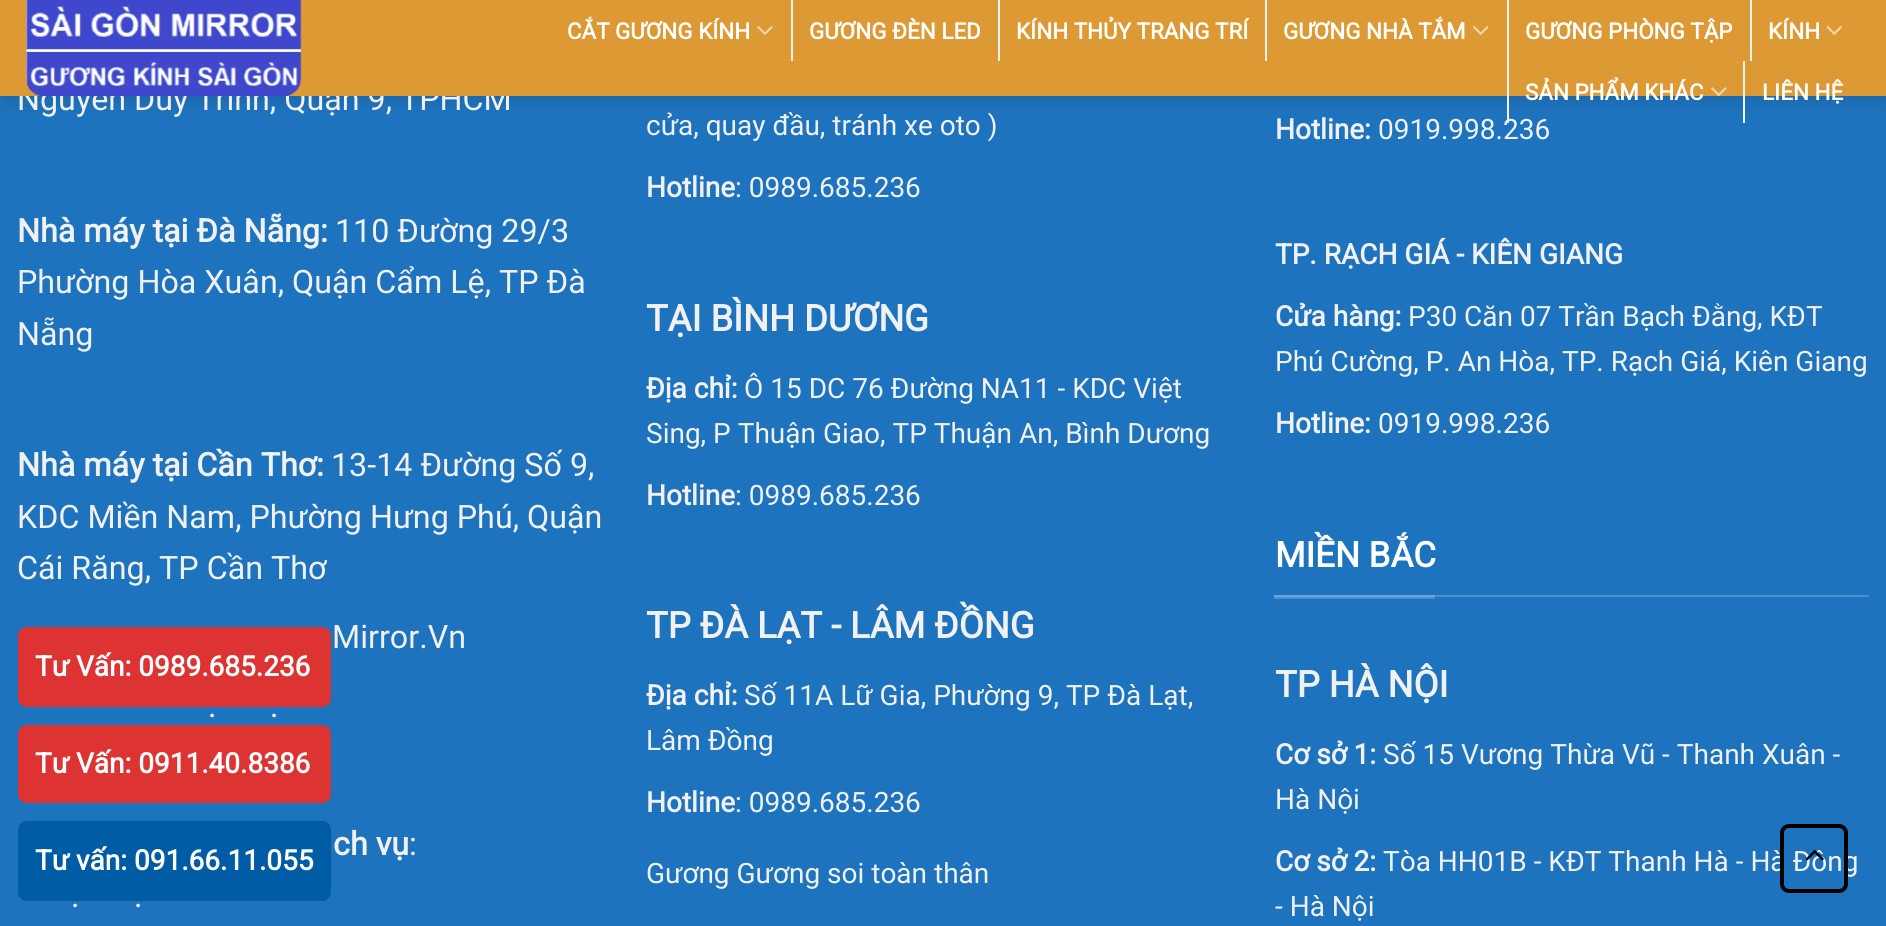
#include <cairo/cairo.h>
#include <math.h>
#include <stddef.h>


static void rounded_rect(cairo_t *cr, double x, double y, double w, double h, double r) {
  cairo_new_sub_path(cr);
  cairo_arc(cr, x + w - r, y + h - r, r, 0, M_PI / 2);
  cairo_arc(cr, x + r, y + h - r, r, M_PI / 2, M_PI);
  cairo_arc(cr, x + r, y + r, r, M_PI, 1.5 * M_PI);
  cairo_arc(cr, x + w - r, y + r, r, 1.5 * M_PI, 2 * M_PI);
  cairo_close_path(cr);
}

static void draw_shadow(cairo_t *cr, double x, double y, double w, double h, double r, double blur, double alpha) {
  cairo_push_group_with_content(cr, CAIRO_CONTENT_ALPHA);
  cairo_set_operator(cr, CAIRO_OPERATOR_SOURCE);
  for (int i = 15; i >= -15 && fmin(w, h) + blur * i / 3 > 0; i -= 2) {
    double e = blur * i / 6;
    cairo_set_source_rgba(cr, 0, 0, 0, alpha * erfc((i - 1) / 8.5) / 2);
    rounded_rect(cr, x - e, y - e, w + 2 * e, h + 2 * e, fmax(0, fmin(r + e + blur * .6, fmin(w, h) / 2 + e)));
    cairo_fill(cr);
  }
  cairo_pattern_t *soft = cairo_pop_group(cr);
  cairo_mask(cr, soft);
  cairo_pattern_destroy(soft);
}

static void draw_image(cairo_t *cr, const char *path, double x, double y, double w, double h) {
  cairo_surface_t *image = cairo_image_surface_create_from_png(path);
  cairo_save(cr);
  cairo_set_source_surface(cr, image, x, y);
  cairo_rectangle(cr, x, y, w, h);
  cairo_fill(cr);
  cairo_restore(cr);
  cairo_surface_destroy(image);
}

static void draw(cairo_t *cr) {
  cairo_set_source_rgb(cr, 30 / 255.0, 115 / 255.0, 190 / 255.0);
  cairo_paint(cr);
  cairo_set_source_rgb(cr, 0, 0, 0);
  draw_shadow(cr, 2, 2, 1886, 96, 0, 9, 0.15);
  cairo_set_source_rgb(cr, 75 / 255.0, 143 / 255.0, 203 / 255.0);
  cairo_rectangle(cr, 1274, 597, 161, 2);
  cairo_fill(cr);
  cairo_rectangle(cr, 1435, 595, 434, 2);
  cairo_fill(cr);
  cairo_set_source_rgb(cr, 111 / 255.0, 165 / 255.0, 213 / 255.0);
  cairo_rectangle(cr, 1274, 595, 161, 2);
  cairo_fill(cr);
  cairo_set_source_rgb(cr, 221 / 255.0, 51 / 255.0, 51 / 255.0);
  rounded_rect(cr, 18, 627, 313, 80, 9);
  cairo_fill(cr);
  rounded_rect(cr, 18, 725, 313, 78, 9);
  cairo_fill(cr);
  cairo_set_source_rgb(cr, 0, 93 / 255.0, 165 / 255.0);
  rounded_rect(cr, 18, 821, 313, 80, 9);
  cairo_fill(cr);
  cairo_select_font_face(cr, "Roboto", CAIRO_FONT_SLANT_NORMAL, CAIRO_FONT_WEIGHT_NORMAL);
  cairo_set_font_size(cr, 32.25);
  cairo_set_source_rgb(cr, 241 / 255.0, 241 / 255.0, 241 / 255.0);
  cairo_move_to(cr, 17, 110);
  cairo_show_text(cr, "Nguyễn Duy Trinh, Quận 9, TPHCM");
  cairo_set_source_rgb(cr, 221 / 255.0, 153 / 255.0, 51 / 255.0);
  cairo_rectangle(cr, 0, 0, 1886, 96);
  cairo_fill(cr);
  cairo_select_font_face(cr, "Roboto", CAIRO_FONT_SLANT_NORMAL, CAIRO_FONT_WEIGHT_BOLD);
  cairo_set_font_size(cr, 22.4);
  cairo_set_source_rgb(cr, 1, 1, 1);
  cairo_move_to(cr, 1762, 100);
  cairo_show_text(cr, "LIÊN HỆ");
  cairo_set_source_rgb(cr, 242 / 255.0, 242 / 255.0, 242 / 255.0);
  cairo_rectangle(cr, 1743, 61, 2, 62);
  cairo_fill(cr);
  draw_image(cr, "images/5.png", 1711, 87, 16, 10);
  cairo_set_source_rgb(cr, 1, 1, 1);
  cairo_move_to(cr, 1525, 100);
  cairo_show_text(cr, "SẢN PHẨM KHÁC");
  draw_image(cr, "images/4.png", 1826, 26, 16, 9);
  cairo_move_to(cr, 1768, 39);
  cairo_show_text(cr, "KÍNH");
  cairo_set_source_rgb(cr, 242 / 255.0, 242 / 255.0, 242 / 255.0);
  cairo_rectangle(cr, 1750, 0, 2, 61);
  cairo_fill(cr);
  cairo_set_source_rgb(cr, 1, 1, 1);
  cairo_move_to(cr, 1525, 39);
  cairo_show_text(cr, "GƯƠNG PHÒNG TẬP");
  draw_image(cr, "images/3.png", 1473, 26, 16, 9);
  cairo_move_to(cr, 1283, 39);
  cairo_show_text(cr, "GƯƠNG NHÀ TẮM");
  cairo_set_source_rgb(cr, 242 / 255.0, 242 / 255.0, 242 / 255.0);
  cairo_rectangle(cr, 1265, 0, 2, 61);
  cairo_fill(cr);
  cairo_set_source_rgb(cr, 1, 1, 1);
  cairo_move_to(cr, 1016, 39);
  cairo_show_text(cr, "KÍNH THỦY TRANG TRÍ");
  cairo_set_source_rgb(cr, 242 / 255.0, 242 / 255.0, 242 / 255.0);
  cairo_rectangle(cr, 998, 0, 2, 61);
  cairo_fill(cr);
  cairo_set_source_rgb(cr, 1, 1, 1);
  cairo_move_to(cr, 809, 39);
  cairo_show_text(cr, "GƯƠNG ĐÈN LED");
  cairo_set_source_rgb(cr, 242 / 255.0, 242 / 255.0, 242 / 255.0);
  cairo_rectangle(cr, 791, 0, 2, 61);
  cairo_fill(cr);
  draw_image(cr, "images/2.png", 757, 26, 16, 9);
  cairo_set_source_rgb(cr, 1, 1, 1);
  cairo_move_to(cr, 567, 39);
  cairo_show_text(cr, "CẮT GƯƠNG KÍNH");
  draw_image(cr, "images/1.png", 26, 0, 276, 97);
  cairo_set_font_size(cr, 32.25);
  cairo_set_source_rgb(cr, 241 / 255.0, 241 / 255.0, 241 / 255.0);
  cairo_move_to(cr, 17, 242);
  cairo_show_text(cr, "Nhà máy tại Đà Nẵng:");
  cairo_select_font_face(cr, "Roboto", CAIRO_FONT_SLANT_NORMAL, CAIRO_FONT_WEIGHT_NORMAL);
  cairo_move_to(cr, 335, 242);
  cairo_show_text(cr, "110 Đường 29/3");
  cairo_move_to(cr, 17, 293);
  cairo_show_text(cr, "Phường Hòa Xuân, Quận Cẩm Lệ, TP Đà");
  cairo_move_to(cr, 17, 345);
  cairo_show_text(cr, "Nẵng");
  cairo_select_font_face(cr, "Roboto", CAIRO_FONT_SLANT_NORMAL, CAIRO_FONT_WEIGHT_BOLD);
  cairo_move_to(cr, 17, 476);
  cairo_show_text(cr, "Nhà máy tại Cần Thơ:");
  cairo_select_font_face(cr, "Roboto", CAIRO_FONT_SLANT_NORMAL, CAIRO_FONT_WEIGHT_NORMAL);
  cairo_move_to(cr, 331, 476);
  cairo_show_text(cr, "13-14 Đường Số 9,");
  cairo_move_to(cr, 17, 528);
  cairo_show_text(cr, "KDC Miền Nam, Phường Hưng Phú, Quận");
  cairo_move_to(cr, 17, 579);
  cairo_show_text(cr, "Cái Răng, TP Cần Thơ");
  cairo_move_to(cr, 332, 648);
  cairo_show_text(cr, "Mirror.Vn");
  cairo_move_to(cr, 208, 717);
  cairo_show_text(cr, ".");
  cairo_move_to(cr, 270, 717);
  cairo_show_text(cr, ".");
  cairo_select_font_face(cr, "Roboto", CAIRO_FONT_SLANT_NORMAL, CAIRO_FONT_WEIGHT_BOLD);
  cairo_move_to(cr, 333, 855);
  cairo_show_text(cr, "ch vụ");
  cairo_select_font_face(cr, "Roboto", CAIRO_FONT_SLANT_NORMAL, CAIRO_FONT_WEIGHT_NORMAL);
  cairo_move_to(cr, 409, 855);
  cairo_show_text(cr, ":");
  cairo_move_to(cr, 71, 907);
  cairo_show_text(cr, ".");
  cairo_move_to(cr, 134, 907);
  cairo_show_text(cr, ".");
  cairo_set_font_size(cr, 28);
  cairo_move_to(cr, 646, 135);
  cairo_show_text(cr, "cửa, quay đầu, tránh xe oto )");
  cairo_select_font_face(cr, "Roboto", CAIRO_FONT_SLANT_NORMAL, CAIRO_FONT_WEIGHT_BOLD);
  cairo_move_to(cr, 646, 197);
  cairo_show_text(cr, "Hotline");
  cairo_select_font_face(cr, "Roboto", CAIRO_FONT_SLANT_NORMAL, CAIRO_FONT_WEIGHT_NORMAL);
  cairo_move_to(cr, 735, 197);
  cairo_show_text(cr, ": 0989.685.236");
  cairo_select_font_face(cr, "Roboto", CAIRO_FONT_SLANT_NORMAL, CAIRO_FONT_WEIGHT_BOLD);
  cairo_set_font_size(cr, 36.4);
  cairo_move_to(cr, 646, 331);
  cairo_show_text(cr, "TẠI BÌNH DƯƠNG");
  cairo_set_font_size(cr, 28);
  cairo_move_to(cr, 646, 398);
  cairo_show_text(cr, "Địa chỉ:");
  cairo_select_font_face(cr, "Roboto", CAIRO_FONT_SLANT_NORMAL, CAIRO_FONT_WEIGHT_NORMAL);
  cairo_move_to(cr, 744, 398);
  cairo_show_text(cr, "Ô 15 DC 76 Đường NA11 - KDC Việt");
  cairo_move_to(cr, 646, 443);
  cairo_show_text(cr, "Sing, P Thuận Giao, TP Thuận An, Bình Dương");
  cairo_select_font_face(cr, "Roboto", CAIRO_FONT_SLANT_NORMAL, CAIRO_FONT_WEIGHT_BOLD);
  cairo_move_to(cr, 646, 505);
  cairo_show_text(cr, "Hotline");
  cairo_select_font_face(cr, "Roboto", CAIRO_FONT_SLANT_NORMAL, CAIRO_FONT_WEIGHT_NORMAL);
  cairo_move_to(cr, 735, 505);
  cairo_show_text(cr, ": 0989.685.236");
  cairo_select_font_face(cr, "Roboto", CAIRO_FONT_SLANT_NORMAL, CAIRO_FONT_WEIGHT_BOLD);
  cairo_set_font_size(cr, 36.4);
  cairo_move_to(cr, 646, 638);
  cairo_show_text(cr, "TP ĐÀ LẠT - LÂM ĐỒNG");
  cairo_set_font_size(cr, 28);
  cairo_move_to(cr, 646, 705);
  cairo_show_text(cr, "Địa chỉ:");
  cairo_select_font_face(cr, "Roboto", CAIRO_FONT_SLANT_NORMAL, CAIRO_FONT_WEIGHT_NORMAL);
  cairo_move_to(cr, 744, 705);
  cairo_show_text(cr, "Số 11A Lữ Gia, Phường 9, TP Đà Lạt,");
  cairo_move_to(cr, 646, 750);
  cairo_show_text(cr, "Lâm Đồng");
  cairo_select_font_face(cr, "Roboto", CAIRO_FONT_SLANT_NORMAL, CAIRO_FONT_WEIGHT_BOLD);
  cairo_move_to(cr, 646, 812);
  cairo_show_text(cr, "Hotline");
  cairo_select_font_face(cr, "Roboto", CAIRO_FONT_SLANT_NORMAL, CAIRO_FONT_WEIGHT_NORMAL);
  cairo_move_to(cr, 735, 812);
  cairo_show_text(cr, ": 0989.685.236");
  cairo_move_to(cr, 646, 883);
  cairo_show_text(cr, "Gương Gương soi toàn thân");
  cairo_select_font_face(cr, "Roboto", CAIRO_FONT_SLANT_NORMAL, CAIRO_FONT_WEIGHT_BOLD);
  cairo_move_to(cr, 1275, 139);
  cairo_show_text(cr, "Hotline:");
  cairo_select_font_face(cr, "Roboto", CAIRO_FONT_SLANT_NORMAL, CAIRO_FONT_WEIGHT_NORMAL);
  cairo_move_to(cr, 1378, 139);
  cairo_show_text(cr, "0919.998.236");
  cairo_set_source_rgb(cr, 242 / 255.0, 242 / 255.0, 242 / 255.0);
  cairo_rectangle(cr, 1507, 0, 2, 123);
  cairo_fill(cr);
  cairo_select_font_face(cr, "Roboto", CAIRO_FONT_SLANT_NORMAL, CAIRO_FONT_WEIGHT_BOLD);
  cairo_set_source_rgb(cr, 241 / 255.0, 241 / 255.0, 241 / 255.0);
  cairo_move_to(cr, 1275, 264);
  cairo_show_text(cr, "TP. RẠCH GIÁ - KIÊN GIANG");
  cairo_move_to(cr, 1275, 326);
  cairo_show_text(cr, "Cửa hàng:");
  cairo_select_font_face(cr, "Roboto", CAIRO_FONT_SLANT_NORMAL, CAIRO_FONT_WEIGHT_NORMAL);
  cairo_move_to(cr, 1408, 326);
  cairo_show_text(cr, "P30 Căn 07 Trần Bạch Đằng, KĐT");
  cairo_move_to(cr, 1275, 371);
  cairo_show_text(cr, "Phú Cường, P. An Hòa, TP. Rạch Giá, Kiên Giang");
  cairo_select_font_face(cr, "Roboto", CAIRO_FONT_SLANT_NORMAL, CAIRO_FONT_WEIGHT_BOLD);
  cairo_move_to(cr, 1275, 433);
  cairo_show_text(cr, "Hotline:");
  cairo_select_font_face(cr, "Roboto", CAIRO_FONT_SLANT_NORMAL, CAIRO_FONT_WEIGHT_NORMAL);
  cairo_move_to(cr, 1378, 433);
  cairo_show_text(cr, "0919.998.236");
  cairo_select_font_face(cr, "Roboto", CAIRO_FONT_SLANT_NORMAL, CAIRO_FONT_WEIGHT_BOLD);
  cairo_set_font_size(cr, 35);
  cairo_set_source_rgb(cr, 1, 1, 1);
  cairo_move_to(cr, 1275, 567);
  cairo_show_text(cr, "MIỀN BẮC");
  cairo_set_font_size(cr, 36.4);
  cairo_set_source_rgb(cr, 241 / 255.0, 241 / 255.0, 241 / 255.0);
  cairo_move_to(cr, 1275, 697);
  cairo_show_text(cr, "TP HÀ NỘI");
  cairo_set_font_size(cr, 28);
  cairo_move_to(cr, 1275, 764);
  cairo_show_text(cr, "Cơ sở 1:");
  cairo_select_font_face(cr, "Roboto", CAIRO_FONT_SLANT_NORMAL, CAIRO_FONT_WEIGHT_NORMAL);
  cairo_move_to(cr, 1383, 764);
  cairo_show_text(cr, "Số 15 Vương Thừa Vũ - Thanh Xuân -");
  cairo_move_to(cr, 1275, 809);
  cairo_show_text(cr, "Hà Nội");
  cairo_select_font_face(cr, "Roboto", CAIRO_FONT_SLANT_NORMAL, CAIRO_FONT_WEIGHT_BOLD);
  cairo_move_to(cr, 1275, 871);
  cairo_show_text(cr, "Cơ sở 2:");
  cairo_select_font_face(cr, "Roboto", CAIRO_FONT_SLANT_NORMAL, CAIRO_FONT_WEIGHT_NORMAL);
  cairo_move_to(cr, 1383, 871);
  cairo_show_text(cr, "Tòa HH01B - KĐT Thanh Hà - Hà Đông");
  cairo_move_to(cr, 1275, 916);
  cairo_show_text(cr, "- Hà Nội");
  rounded_rect(cr, 1782, 826, 64, 65, 7);
  cairo_set_source_rgb(cr, 0, 0, 0);
  cairo_set_line_width(cr, 4);
  cairo_stroke(cr);
  draw_image(cr, "images/6.png", 1805, 849, 19, 12);
  cairo_select_font_face(cr, "Roboto", CAIRO_FONT_SLANT_NORMAL, CAIRO_FONT_WEIGHT_BOLD);
  cairo_set_source_rgb(cr, 1, 1, 1);
  cairo_move_to(cr, 35, 676);
  cairo_show_text(cr, "Tư Vấn: 0989.685.236");
  cairo_move_to(cr, 35, 773);
  cairo_show_text(cr, "Tư Vấn: 0911.40.8386");
  cairo_move_to(cr, 35, 870);
  cairo_show_text(cr, "Tư vấn: 091.66.11.055");
}

int main(void) {
  cairo_surface_t *surface = cairo_image_surface_create(CAIRO_FORMAT_RGB24, 1886, 926);
  cairo_t *cr = cairo_create(surface);
  cairo_font_options_t *options = cairo_font_options_create();
  cairo_font_options_set_hint_metrics(options, CAIRO_HINT_METRICS_OFF);
  cairo_font_options_set_hint_style(options, CAIRO_HINT_STYLE_NONE);
  cairo_set_font_options(cr, options);
  cairo_set_miter_limit(cr, 4);
  draw(cr);
  cairo_surface_write_to_png(surface, "out.png");
  cairo_font_options_destroy(options);
  cairo_destroy(cr);
  cairo_surface_destroy(surface);
  return 0;
}
